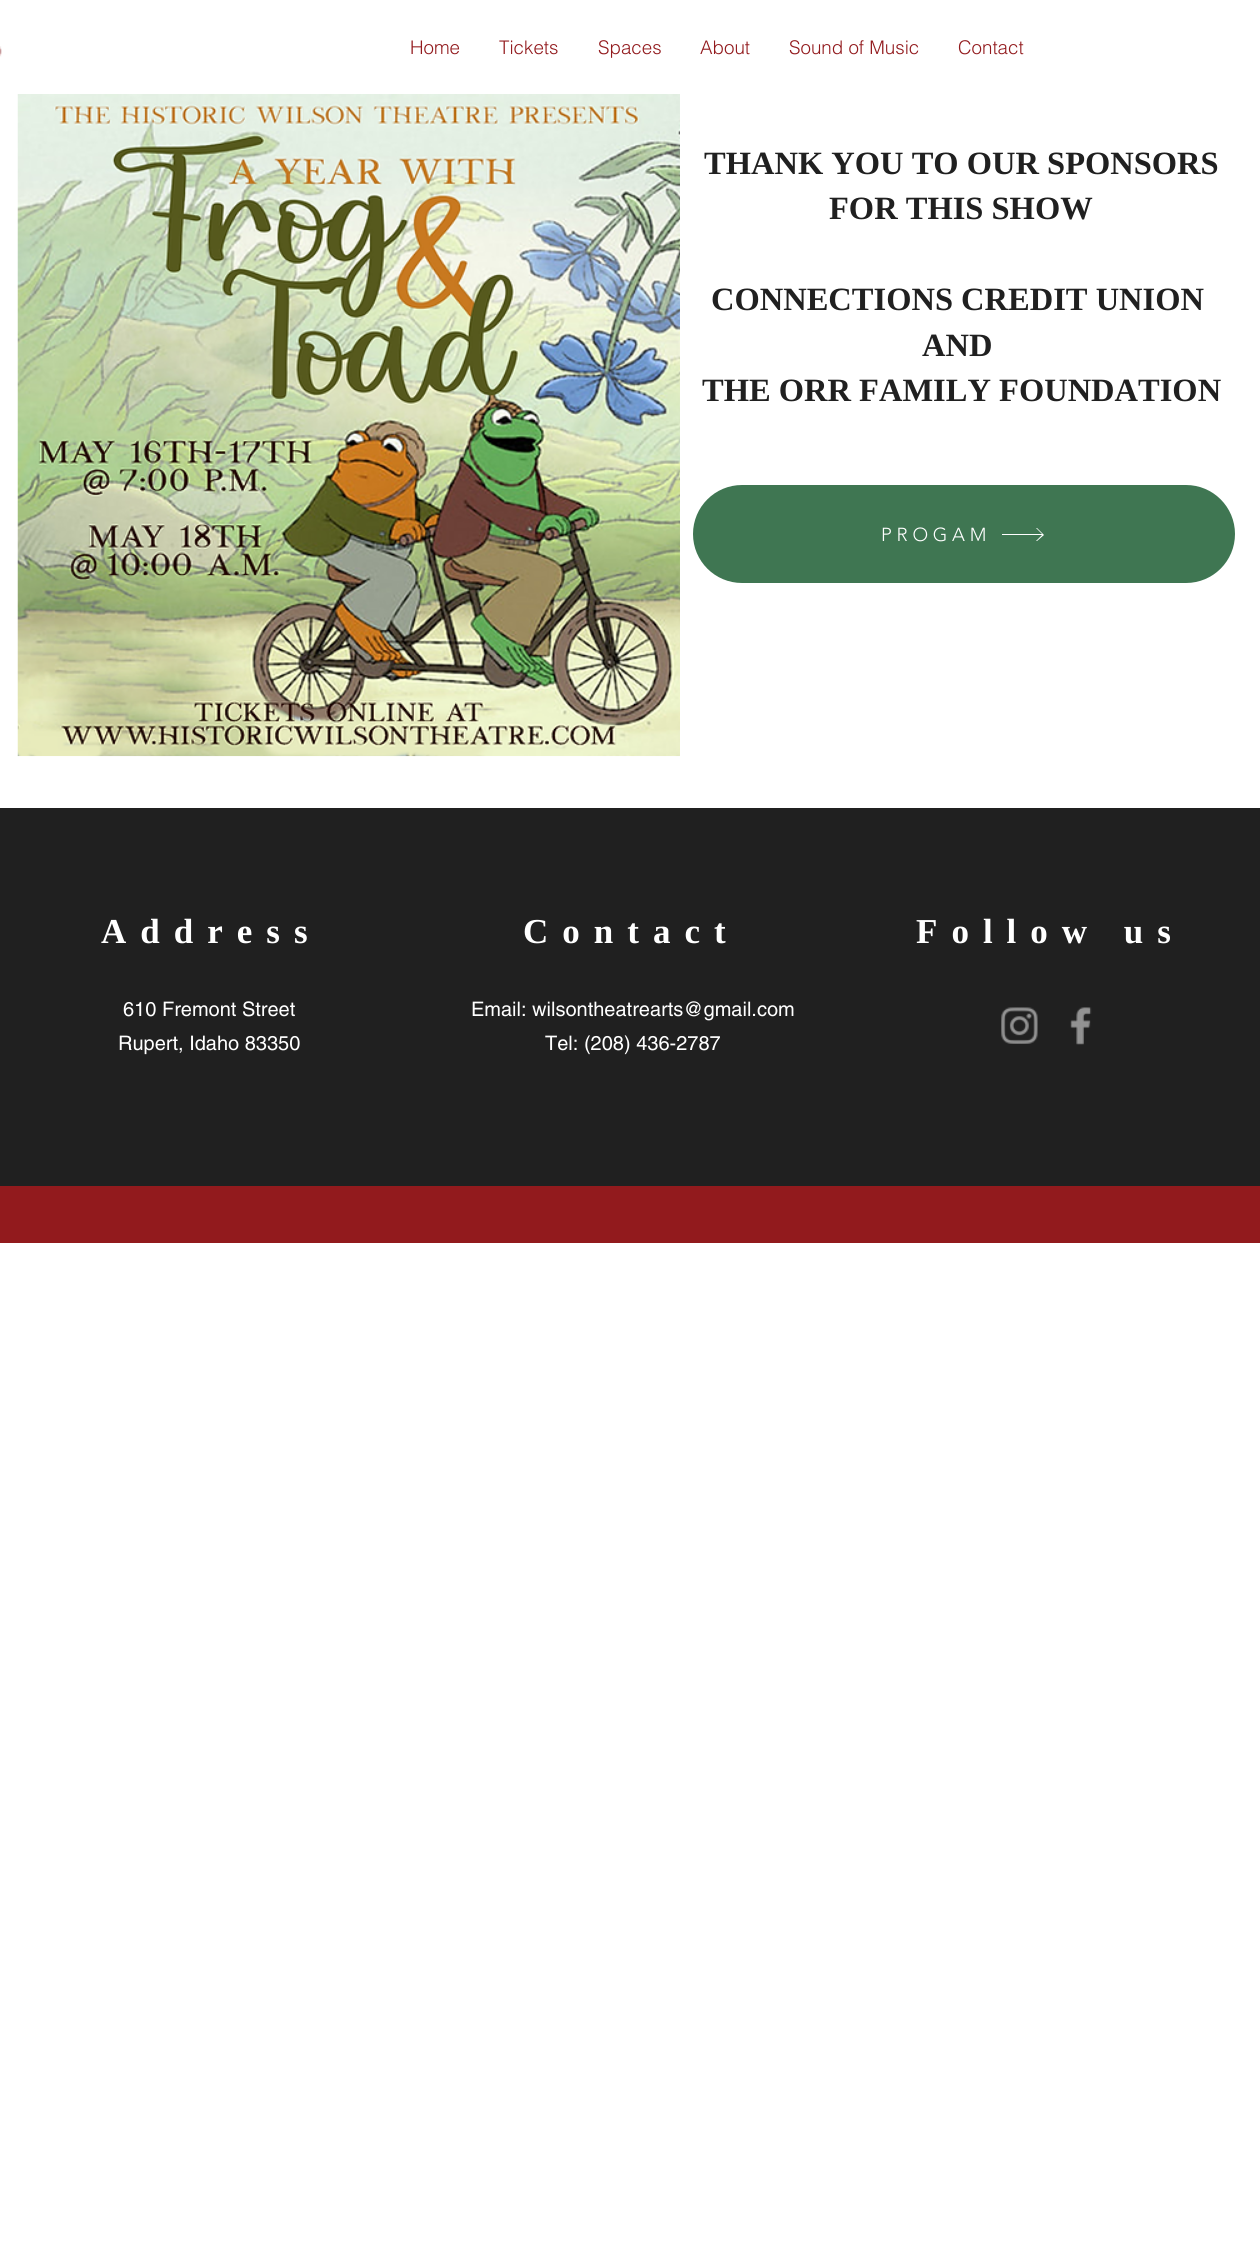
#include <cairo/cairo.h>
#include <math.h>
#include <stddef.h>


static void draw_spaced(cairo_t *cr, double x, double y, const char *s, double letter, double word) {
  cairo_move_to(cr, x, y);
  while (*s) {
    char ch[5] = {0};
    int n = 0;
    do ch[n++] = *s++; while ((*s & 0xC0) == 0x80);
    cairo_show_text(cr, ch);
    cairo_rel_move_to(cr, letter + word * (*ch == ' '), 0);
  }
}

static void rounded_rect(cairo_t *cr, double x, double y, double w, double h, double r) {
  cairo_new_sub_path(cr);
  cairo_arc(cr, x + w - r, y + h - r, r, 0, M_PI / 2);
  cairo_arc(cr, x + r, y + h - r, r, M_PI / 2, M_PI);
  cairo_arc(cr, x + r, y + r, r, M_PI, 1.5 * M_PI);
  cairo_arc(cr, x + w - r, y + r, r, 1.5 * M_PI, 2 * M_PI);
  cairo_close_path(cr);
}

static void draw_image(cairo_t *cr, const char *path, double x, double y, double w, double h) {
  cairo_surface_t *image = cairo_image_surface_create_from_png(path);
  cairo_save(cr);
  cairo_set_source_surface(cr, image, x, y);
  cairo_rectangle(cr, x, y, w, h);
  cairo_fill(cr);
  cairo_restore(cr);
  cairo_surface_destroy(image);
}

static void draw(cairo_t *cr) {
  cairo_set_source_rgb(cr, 1, 1, 1);
  cairo_paint(cr);
  draw_image(cr, "images/1.png", 0, 46, 2, 11);
  draw_image(cr, "images/2.png", 17, 94, 663, 663);
  cairo_set_source_rgb(cr, 63 / 255.0, 118 / 255.0, 82 / 255.0);
  rounded_rect(cr, 693, 485, 542, 98, 49);
  cairo_fill(cr);
  cairo_set_source_rgb(cr, 1, 1, 1);
  cairo_new_path(cr);
  cairo_move_to(cr, 1037, 528);
  cairo_line_to(cr, 1036, 528);
  cairo_line_to(cr, 1042, 534);
  cairo_line_to(cr, 1002, 534);
  cairo_line_to(cr, 1002, 535);
  cairo_line_to(cr, 1042, 535);
  cairo_line_to(cr, 1036, 541);
  cairo_line_to(cr, 1037, 541);
  cairo_line_to(cr, 1044, 535);
  cairo_close_path(cr);
  cairo_fill(cr);
  cairo_set_source_rgb(cr, 32 / 255.0, 32 / 255.0, 32 / 255.0);
  cairo_rectangle(cr, 0, 808, 1260, 378);
  cairo_fill(cr);
  draw_image(cr, "images/3.png", 1001, 1007, 37, 37);
  draw_image(cr, "images/4.png", 1070, 1007, 22, 38);
  cairo_set_source_rgb(cr, 146 / 255.0, 26 / 255.0, 29 / 255.0);
  cairo_rectangle(cr, 0, 1186, 1260, 57);
  cairo_fill(cr);
  cairo_select_font_face(cr, "helvetica Light", CAIRO_FONT_SLANT_NORMAL, CAIRO_FONT_WEIGHT_NORMAL);
  cairo_set_font_size(cr, 18.75);
  cairo_move_to(cr, 410, 54);
  cairo_show_text(cr, "Home");
  cairo_move_to(cr, 499, 54);
  cairo_show_text(cr, "Tickets");
  cairo_move_to(cr, 598, 54);
  cairo_show_text(cr, "Spaces");
  cairo_move_to(cr, 700, 54);
  cairo_show_text(cr, "About");
  cairo_move_to(cr, 789, 54);
  cairo_show_text(cr, "Sound of Music");
  cairo_move_to(cr, 958, 54);
  cairo_show_text(cr, "Contact");
  cairo_select_font_face(cr, "Liberation Serif", CAIRO_FONT_SLANT_NORMAL, CAIRO_FONT_WEIGHT_BOLD);
  cairo_set_font_size(cr, 32.5);
  cairo_set_source_rgb(cr, 32 / 255.0, 32 / 255.0, 32 / 255.0);
  cairo_move_to(cr, 704, 174);
  cairo_show_text(cr, "THANK YOU TO OUR SPONSORS");
  cairo_move_to(cr, 829, 219);
  cairo_show_text(cr, "FOR THIS SHOW");
  cairo_move_to(cr, 711, 310);
  cairo_show_text(cr, "CONNECTIONS CREDIT UNION");
  cairo_move_to(cr, 922, 356);
  cairo_show_text(cr, "AND");
  cairo_move_to(cr, 702, 401);
  cairo_show_text(cr, "THE ORR FAMILY FOUNDATION");
  cairo_select_font_face(cr, "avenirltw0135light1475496 Light", CAIRO_FONT_SLANT_NORMAL, CAIRO_FONT_WEIGHT_NORMAL);
  cairo_set_font_size(cr, 18.75);
  cairo_set_source_rgb(cr, 1, 1, 1);
  draw_spaced(cr, 881, 541, "PROGAM", 4.75, 0);
  cairo_select_font_face(cr, "Liberation Serif", CAIRO_FONT_SLANT_NORMAL, CAIRO_FONT_WEIGHT_BOLD);
  cairo_set_font_size(cr, 35);
  draw_spaced(cr, 101, 943, "Address", 14, 0);
  cairo_select_font_face(cr, "helvetica", CAIRO_FONT_SLANT_NORMAL, CAIRO_FONT_WEIGHT_NORMAL);
  cairo_set_font_size(cr, 20);
  cairo_move_to(cr, 123, 1016);
  cairo_show_text(cr, "610 Fremont Street");
  cairo_move_to(cr, 118, 1050);
  cairo_show_text(cr, "Rupert, Idaho 83350");
  cairo_select_font_face(cr, "Liberation Serif", CAIRO_FONT_SLANT_NORMAL, CAIRO_FONT_WEIGHT_BOLD);
  cairo_set_font_size(cr, 35);
  draw_spaced(cr, 523, 943, "Contact", 14, 0);
  cairo_select_font_face(cr, "helvetica", CAIRO_FONT_SLANT_NORMAL, CAIRO_FONT_WEIGHT_NORMAL);
  cairo_set_font_size(cr, 20);
  cairo_move_to(cr, 471, 1016);
  cairo_show_text(cr, "Email: wilsontheatrearts@gmail.com");
  cairo_move_to(cr, 545, 1050);
  cairo_show_text(cr, "Tel: (208) 436-2787");
  cairo_select_font_face(cr, "Liberation Serif", CAIRO_FONT_SLANT_NORMAL, CAIRO_FONT_WEIGHT_BOLD);
  cairo_set_font_size(cr, 35);
  draw_spaced(cr, 916, 943, "Follow us", 14, 0);
}

int main(void) {
  cairo_surface_t *surface = cairo_image_surface_create(CAIRO_FORMAT_RGB24, 1260, 2255);
  cairo_t *cr = cairo_create(surface);
  cairo_font_options_t *options = cairo_font_options_create();
  cairo_font_options_set_hint_metrics(options, CAIRO_HINT_METRICS_OFF);
  cairo_font_options_set_hint_style(options, CAIRO_HINT_STYLE_NONE);
  cairo_set_font_options(cr, options);
  cairo_set_miter_limit(cr, 4);
  draw(cr);
  cairo_surface_write_to_png(surface, "out.png");
  cairo_font_options_destroy(options);
  cairo_destroy(cr);
  cairo_surface_destroy(surface);
  return 0;
}
